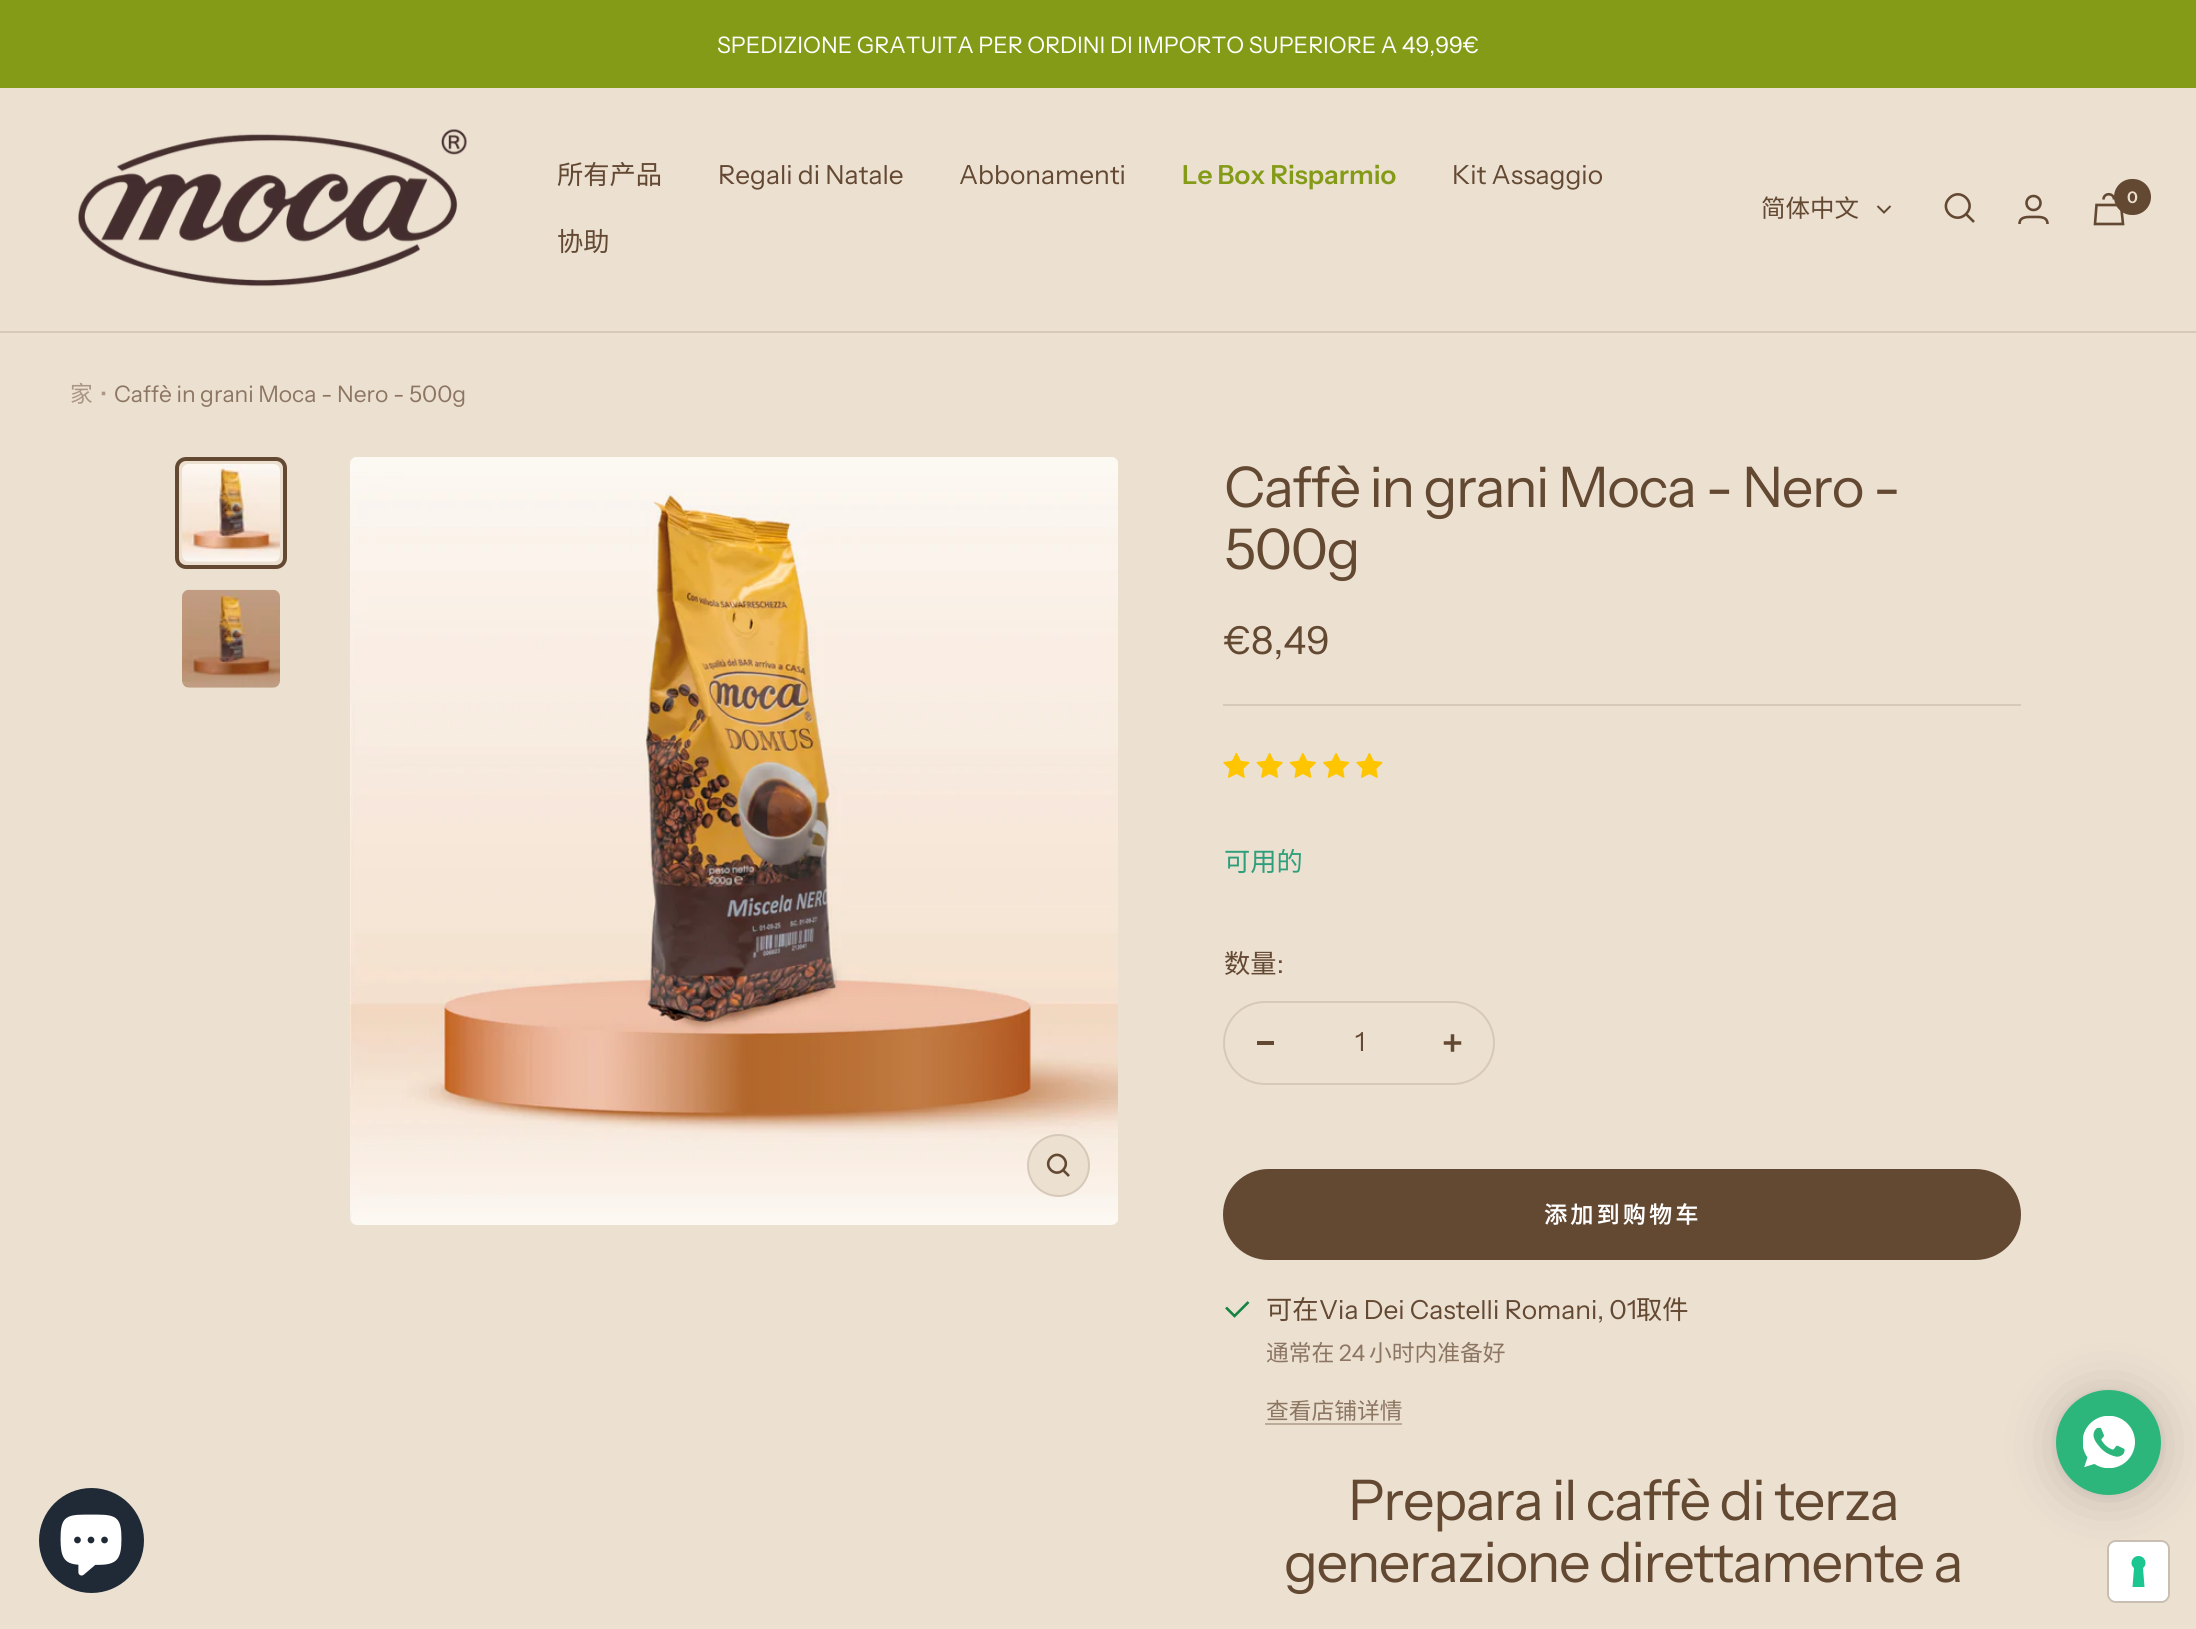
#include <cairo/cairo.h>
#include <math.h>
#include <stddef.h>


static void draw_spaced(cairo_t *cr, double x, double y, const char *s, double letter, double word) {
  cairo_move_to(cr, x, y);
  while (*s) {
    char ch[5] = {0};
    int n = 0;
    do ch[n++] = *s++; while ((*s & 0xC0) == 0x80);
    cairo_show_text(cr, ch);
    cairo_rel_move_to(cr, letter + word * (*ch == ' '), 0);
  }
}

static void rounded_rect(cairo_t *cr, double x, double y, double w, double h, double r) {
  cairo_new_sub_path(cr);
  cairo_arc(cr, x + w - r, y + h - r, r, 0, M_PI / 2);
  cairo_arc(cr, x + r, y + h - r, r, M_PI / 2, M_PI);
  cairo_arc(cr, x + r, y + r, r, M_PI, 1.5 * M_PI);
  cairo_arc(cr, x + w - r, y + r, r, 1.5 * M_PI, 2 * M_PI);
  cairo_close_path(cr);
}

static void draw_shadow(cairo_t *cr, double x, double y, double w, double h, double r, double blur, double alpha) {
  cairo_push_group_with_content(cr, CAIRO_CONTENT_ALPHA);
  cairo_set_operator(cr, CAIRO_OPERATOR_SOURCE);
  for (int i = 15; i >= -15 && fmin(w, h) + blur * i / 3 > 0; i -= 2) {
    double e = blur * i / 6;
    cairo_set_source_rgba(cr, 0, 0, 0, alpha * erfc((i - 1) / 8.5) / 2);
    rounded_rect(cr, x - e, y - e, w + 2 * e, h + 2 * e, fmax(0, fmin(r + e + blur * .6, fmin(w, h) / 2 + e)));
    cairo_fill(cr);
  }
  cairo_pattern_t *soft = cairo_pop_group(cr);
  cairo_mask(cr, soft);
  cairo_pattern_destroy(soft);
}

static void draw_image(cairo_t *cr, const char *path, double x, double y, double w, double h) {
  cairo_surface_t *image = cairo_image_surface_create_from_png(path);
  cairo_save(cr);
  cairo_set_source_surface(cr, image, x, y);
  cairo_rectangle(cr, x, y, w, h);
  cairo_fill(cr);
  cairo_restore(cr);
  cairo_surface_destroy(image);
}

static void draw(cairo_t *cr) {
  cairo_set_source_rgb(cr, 236 / 255.0, 224 / 255.0, 209 / 255.0);
  cairo_paint(cr);
  cairo_set_source_rgb(cr, 132 / 255.0, 155 / 255.0, 24 / 255.0);
  cairo_rectangle(cr, 0, 0, 2196, 88);
  cairo_fill(cr);
  cairo_set_source_rgb(cr, 215 / 255.0, 201 / 255.0, 185 / 255.0);
  cairo_rectangle(cr, 0, 331, 2196, 2);
  cairo_fill(cr);
  draw_image(cr, "images/1.png", 78, 129, 390, 158);
  cairo_new_path(cr);
  cairo_move_to(cr, 1877.5, 206);
  cairo_line_to(cr, 1884, 212.5);
  cairo_line_to(cr, 1890.5, 206);
  cairo_set_source_rgb(cr, 99 / 255.0, 72 / 255.0, 50 / 255.0);
  cairo_stroke(cr);
  cairo_new_path(cr);
  cairo_move_to(cr, 1966, 214);
  cairo_curve_to(cr, 1977, 203, 1960.5, 187, 1949.5, 198);
  cairo_curve_to(cr, 1938.5, 209, 1955, 225, 1966, 214);
  cairo_close_path(cr);
  cairo_move_to(cr, 1966, 214);
  cairo_line_to(cr, 1974, 222);
  cairo_set_line_width(cr, 2.6);
  cairo_stroke(cr);
  cairo_arc(cr, 2033.5, 203, 7, 0, 2 * M_PI);
  cairo_stroke(cr);
  cairo_new_path(cr);
  cairo_move_to(cr, 2019.5, 224);
  cairo_curve_to(cr, 2019.5, 216, 2028, 217, 2033.5, 217);
  cairo_curve_to(cr, 2039, 217, 2047.5, 216, 2047.5, 224);
  cairo_stroke(cr);
  cairo_new_path(cr);
  cairo_move_to(cr, 2096.5, 205);
  cairo_line_to(cr, 2121, 205);
  cairo_line_to(cr, 2123, 224);
  cairo_line_to(cr, 2095, 224);
  cairo_close_path(cr);
  cairo_move_to(cr, 2114, 199.5);
  cairo_curve_to(cr, 2114, 192.5, 2103.5, 192.5, 2103.5, 199.5);
  cairo_stroke(cr);
  rounded_rect(cr, 2114, 179, 37, 36, 18);
  cairo_fill(cr);
  draw_image(cr, "images/2.png", 182, 464, 98, 98);
  rounded_rect(cr, 177, 459, 108, 108, 9);
  cairo_set_line_width(cr, 4);
  cairo_stroke(cr);
  draw_image(cr, "images/3.png", 182, 589, 98, 99);
  draw_image(cr, "images/4.png", 350, 457, 768, 768);
  cairo_set_source_rgb(cr, 236 / 255.0, 224 / 255.0, 209 / 255.0);
  cairo_arc(cr, 1058.5, 1165.5, 30.5, 0, 2 * M_PI);
  cairo_fill_preserve(cr);
  cairo_set_source_rgb(cr, 215 / 255.0, 201 / 255.0, 185 / 255.0);
  cairo_set_line_width(cr, 2);
  cairo_stroke(cr);
  cairo_new_path(cr);
  cairo_move_to(cr, 1063, 1170);
  cairo_curve_to(cr, 1071.5, 1161.5, 1059, 1149.5, 1051, 1157.5);
  cairo_curve_to(cr, 1042.5, 1166, 1055, 1178, 1063, 1170);
  cairo_close_path(cr);
  cairo_move_to(cr, 1063, 1170);
  cairo_line_to(cr, 1069, 1176);
  cairo_set_source_rgb(cr, 99 / 255.0, 72 / 255.0, 50 / 255.0);
  cairo_set_line_width(cr, 2.6);
  cairo_stroke(cr);
  cairo_set_source_rgb(cr, 215 / 255.0, 201 / 255.0, 185 / 255.0);
  cairo_rectangle(cr, 1223, 704, 798, 2);
  cairo_fill(cr);
  draw_image(cr, "images/5.png", 1223, 752, 27, 26);
  draw_image(cr, "images/6.png", 1256, 752, 27, 26);
  draw_image(cr, "images/7.png", 1289, 752, 27, 26);
  draw_image(cr, "images/8.png", 1323, 753, 27, 25);
  draw_image(cr, "images/5.png", 1356, 752, 27, 26);
  rounded_rect(cr, 1224, 1002, 270, 82, 41);
  cairo_set_line_width(cr, 2);
  cairo_stroke(cr);
  cairo_set_source_rgb(cr, 99 / 255.0, 72 / 255.0, 50 / 255.0);
  cairo_rectangle(cr, 1257, 1041, 17, 4);
  cairo_fill(cr);
  draw_image(cr, "images/9.png", 1443, 1034, 19, 18);
  rounded_rect(cr, 1223, 1169, 798, 91, 45.5);
  cairo_fill(cr);
  cairo_new_path(cr);
  cairo_move_to(cr, 1226, 1307.5);
  cairo_line_to(cr, 1234.5, 1316);
  cairo_line_to(cr, 1248.5, 1302);
  cairo_set_source_rgb(cr, 22 / 255.0, 131 / 255.0, 66 / 255.0);
  cairo_set_line_width(cr, 2.6);
  cairo_stroke(cr);
  cairo_set_source_rgb(cr, 188 / 255.0, 171 / 255.0, 153 / 255.0);
  cairo_rectangle(cr, 1265, 1423, 137, 2);
  cairo_fill(cr);
  cairo_set_source_rgb(cr, 0, 0, 0);
  draw_shadow(cr, 2056, 1393, 105, 105, 52.5, 28, 0.16);
  draw_shadow(cr, 2056, 1391, 105, 105, 52.5, 5, 0.06);
  cairo_set_source_rgb(cr, 45 / 255.0, 182 / 255.0, 124 / 255.0);
  cairo_arc(cr, 2108.5, 1442.5, 52.5, 0, 2 * M_PI);
  cairo_fill(cr);
  draw_image(cr, "images/10.png", 2083, 1416, 52, 52);
  cairo_set_source_rgb(cr, 32 / 255.0, 42 / 255.0, 54 / 255.0);
  cairo_arc(cr, 91.5, 1540.5, 52.5, 0, 2 * M_PI);
  cairo_fill(cr);
  draw_image(cr, "images/11.png", 60, 1514, 62, 62);
  rounded_rect(cr, 2108, 1541, 61, 61, 8);
  cairo_set_source_rgb(cr, 200 / 255.0, 190 / 255.0, 177 / 255.0);
  cairo_set_line_width(cr, 2);
  cairo_stroke(cr);
  cairo_set_source_rgb(cr, 1, 1, 1);
  rounded_rect(cr, 2109, 1542, 59, 59, 7);
  cairo_fill(cr);
  cairo_set_source_rgb(cr, 28 / 255.0, 198 / 255.0, 145 / 255.0);
  cairo_set_fill_rule(cr, CAIRO_FILL_RULE_EVEN_ODD);
  cairo_new_path(cr);
  cairo_move_to(cr, 2138.5, 1556);
  cairo_curve_to(cr, 2145, 1556, 2148, 1564, 2143, 1568);
  cairo_line_to(cr, 2144.5, 1587);
  cairo_line_to(cr, 2132.5, 1587);
  cairo_line_to(cr, 2134, 1568);
  cairo_curve_to(cr, 2129, 1564, 2132, 1556, 2138.5, 1556);
  cairo_close_path(cr);
  cairo_fill(cr);
  cairo_select_font_face(cr, "Instrument Sans", CAIRO_FONT_SLANT_NORMAL, CAIRO_FONT_WEIGHT_NORMAL);
  cairo_set_font_size(cr, 22.75);
  cairo_set_source_rgb(cr, 1, 1, 1);
  cairo_move_to(cr, 717, 53);
  cairo_show_text(cr, "SPEDIZIONE GRATUITA PER ORDINI DI IMPORTO SUPERIORE A 49,99€");
  cairo_select_font_face(cr, "Noto Sans CJK SC", CAIRO_FONT_SLANT_NORMAL, CAIRO_FONT_WEIGHT_NORMAL);
  cairo_set_font_size(cr, 26.25);
  cairo_set_source_rgb(cr, 99 / 255.0, 72 / 255.0, 50 / 255.0);
  cairo_move_to(cr, 557, 184);
  cairo_show_text(cr, "所有产品");
  cairo_select_font_face(cr, "Instrument Sans", CAIRO_FONT_SLANT_NORMAL, CAIRO_FONT_WEIGHT_NORMAL);
  cairo_move_to(cr, 718, 184);
  cairo_show_text(cr, "Regali di Natale");
  cairo_move_to(cr, 959, 184);
  cairo_show_text(cr, "Abbonamenti");
  cairo_select_font_face(cr, "Instrument Sans SemiBold", CAIRO_FONT_SLANT_NORMAL, CAIRO_FONT_WEIGHT_NORMAL);
  cairo_set_source_rgb(cr, 132 / 255.0, 155 / 255.0, 24 / 255.0);
  cairo_move_to(cr, 1182, 184);
  cairo_show_text(cr, "Le Box Risparmio");
  cairo_select_font_face(cr, "Instrument Sans", CAIRO_FONT_SLANT_NORMAL, CAIRO_FONT_WEIGHT_NORMAL);
  cairo_set_source_rgb(cr, 99 / 255.0, 72 / 255.0, 50 / 255.0);
  cairo_move_to(cr, 1452, 184);
  cairo_show_text(cr, "Kit Assaggio");
  cairo_select_font_face(cr, "Noto Sans CJK SC", CAIRO_FONT_SLANT_NORMAL, CAIRO_FONT_WEIGHT_NORMAL);
  cairo_move_to(cr, 557, 251);
  cairo_show_text(cr, "协助");
  cairo_set_font_size(cr, 24.5);
  cairo_move_to(cr, 1761, 217);
  cairo_show_text(cr, "简体中文");
  cairo_select_font_face(cr, "Instrument Sans SemiBold", CAIRO_FONT_SLANT_NORMAL, CAIRO_FONT_WEIGHT_NORMAL);
  cairo_set_font_size(cr, 16);
  cairo_set_source_rgb(cr, 236 / 255.0, 224 / 255.0, 209 / 255.0);
  cairo_move_to(cr, 2127, 203);
  cairo_show_text(cr, "0");
  cairo_select_font_face(cr, "Noto Sans CJK SC", CAIRO_FONT_SLANT_NORMAL, CAIRO_FONT_WEIGHT_NORMAL);
  cairo_set_font_size(cr, 22.75);
  cairo_set_source_rgb(cr, 169 / 255.0, 150 / 255.0, 131 / 255.0);
  cairo_move_to(cr, 70, 402);
  cairo_show_text(cr, "家");
  cairo_select_font_face(cr, "Instrument Sans", CAIRO_FONT_SLANT_NORMAL, CAIRO_FONT_WEIGHT_NORMAL);
  cairo_move_to(cr, 100, 402);
  cairo_show_text(cr, "•");
  cairo_set_source_rgb(cr, 140 / 255.0, 118 / 255.0, 98 / 255.0);
  cairo_move_to(cr, 114, 402);
  cairo_show_text(cr, "Caffè in grani Moca - Nero - 500g");
  cairo_set_font_size(cr, 56);
  cairo_set_source_rgb(cr, 99 / 255.0, 72 / 255.0, 50 / 255.0);
  draw_spaced(cr, 1224, 507, "Caffè in grani Moca - Nero -", -1.4, 0);
  draw_spaced(cr, 1224, 569, "500g", -1.4, 0);
  cairo_set_font_size(cr, 38.5);
  cairo_move_to(cr, 1224, 654);
  cairo_show_text(cr, "€8,49");
  cairo_select_font_face(cr, "Noto Sans CJK SC", CAIRO_FONT_SLANT_NORMAL, CAIRO_FONT_WEIGHT_NORMAL);
  cairo_set_font_size(cr, 26.25);
  cairo_set_source_rgb(cr, 46 / 255.0, 158 / 255.0, 123 / 255.0);
  cairo_move_to(cr, 1224, 871);
  cairo_show_text(cr, "可用的");
  cairo_set_source_rgb(cr, 99 / 255.0, 72 / 255.0, 50 / 255.0);
  cairo_move_to(cr, 1224, 973);
  cairo_show_text(cr, "数量");
  cairo_select_font_face(cr, "Instrument Sans", CAIRO_FONT_SLANT_NORMAL, CAIRO_FONT_WEIGHT_NORMAL);
  cairo_move_to(cr, 1277, 973);
  cairo_show_text(cr, ":");
  cairo_move_to(cr, 1355, 1051);
  cairo_show_text(cr, "1");
  cairo_select_font_face(cr, "Noto Sans CJK SC", CAIRO_FONT_SLANT_NORMAL, CAIRO_FONT_WEIGHT_BOLD);
  cairo_set_font_size(cr, 22.75);
  cairo_set_source_rgb(cr, 1, 1, 1);
  draw_spaced(cr, 1544, 1223, "添加到购物车", 3.5, 0);
  cairo_select_font_face(cr, "Noto Sans CJK SC", CAIRO_FONT_SLANT_NORMAL, CAIRO_FONT_WEIGHT_NORMAL);
  cairo_set_font_size(cr, 26.25);
  cairo_set_source_rgb(cr, 99 / 255.0, 72 / 255.0, 50 / 255.0);
  cairo_move_to(cr, 1266, 1319);
  cairo_show_text(cr, "可在");
  cairo_select_font_face(cr, "Instrument Sans", CAIRO_FONT_SLANT_NORMAL, CAIRO_FONT_WEIGHT_NORMAL);
  cairo_move_to(cr, 1319, 1319);
  cairo_show_text(cr, "Via Dei Castelli Romani, 01");
  cairo_select_font_face(cr, "Noto Sans CJK SC", CAIRO_FONT_SLANT_NORMAL, CAIRO_FONT_WEIGHT_NORMAL);
  cairo_move_to(cr, 1636, 1319);
  cairo_show_text(cr, "取件");
  cairo_set_font_size(cr, 22.75);
  cairo_set_source_rgb(cr, 140 / 255.0, 118 / 255.0, 98 / 255.0);
  cairo_move_to(cr, 1266, 1361);
  cairo_show_text(cr, "通常在");
  cairo_select_font_face(cr, "Instrument Sans", CAIRO_FONT_SLANT_NORMAL, CAIRO_FONT_WEIGHT_NORMAL);
  cairo_move_to(cr, 1339, 1361);
  cairo_show_text(cr, "24");
  cairo_select_font_face(cr, "Noto Sans CJK SC", CAIRO_FONT_SLANT_NORMAL, CAIRO_FONT_WEIGHT_NORMAL);
  cairo_move_to(cr, 1369, 1361);
  cairo_show_text(cr, "小时内准备好");
  cairo_move_to(cr, 1266, 1419);
  cairo_show_text(cr, "查看店铺详情");
  cairo_select_font_face(cr, "Instrument Sans", CAIRO_FONT_SLANT_NORMAL, CAIRO_FONT_WEIGHT_NORMAL);
  cairo_set_font_size(cr, 56);
  cairo_set_source_rgb(cr, 99 / 255.0, 72 / 255.0, 50 / 255.0);
  draw_spaced(cr, 1348, 1520, "Prepara il caffè di terza", -1.4, 0);
  draw_spaced(cr, 1284, 1582, "generazione direttamente a", -1.4, 0);
}

int main(void) {
  cairo_surface_t *surface = cairo_image_surface_create(CAIRO_FORMAT_RGB24, 2196, 1629);
  cairo_t *cr = cairo_create(surface);
  cairo_font_options_t *options = cairo_font_options_create();
  cairo_font_options_set_hint_metrics(options, CAIRO_HINT_METRICS_OFF);
  cairo_font_options_set_hint_style(options, CAIRO_HINT_STYLE_NONE);
  cairo_set_font_options(cr, options);
  cairo_set_miter_limit(cr, 4);
  draw(cr);
  cairo_surface_write_to_png(surface, "out.png");
  cairo_font_options_destroy(options);
  cairo_destroy(cr);
  cairo_surface_destroy(surface);
  return 0;
}
